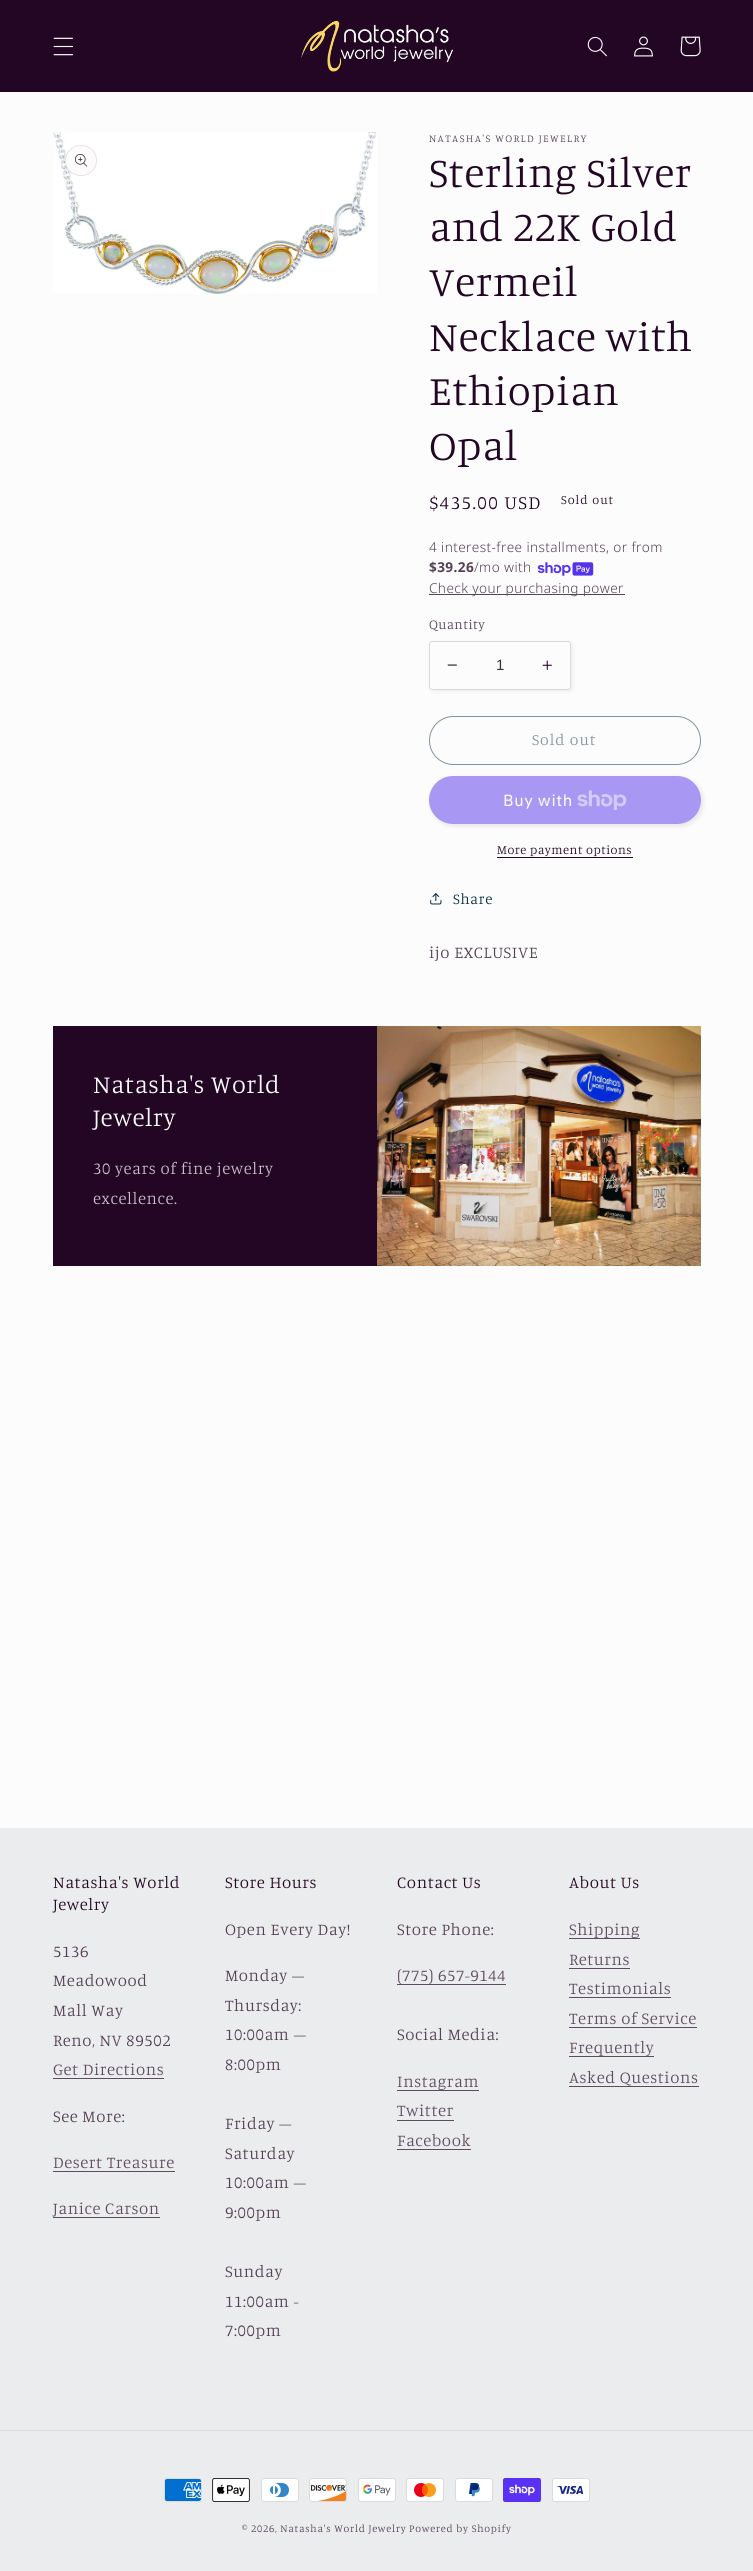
#include <cairo/cairo.h>
#include <math.h>
#include <stddef.h>


static void draw_spaced(cairo_t *cr, double x, double y, const char *s, double letter, double word) {
  cairo_move_to(cr, x, y);
  while (*s) {
    char ch[5] = {0};
    int n = 0;
    do ch[n++] = *s++; while ((*s & 0xC0) == 0x80);
    cairo_show_text(cr, ch);
    cairo_rel_move_to(cr, letter + word * (*ch == ' '), 0);
  }
}

static void rounded_rect(cairo_t *cr, double x, double y, double w, double h, double r) {
  cairo_new_sub_path(cr);
  cairo_arc(cr, x + w - r, y + h - r, r, 0, M_PI / 2);
  cairo_arc(cr, x + r, y + h - r, r, M_PI / 2, M_PI);
  cairo_arc(cr, x + r, y + r, r, M_PI, 1.5 * M_PI);
  cairo_arc(cr, x + w - r, y + r, r, 1.5 * M_PI, 2 * M_PI);
  cairo_close_path(cr);
}

static void draw_shadow(cairo_t *cr, double x, double y, double w, double h, double r, double blur, double alpha) {
  cairo_push_group_with_content(cr, CAIRO_CONTENT_ALPHA);
  cairo_set_operator(cr, CAIRO_OPERATOR_SOURCE);
  for (int i = 15; i >= -15 && fmin(w, h) + blur * i / 3 > 0; i -= 2) {
    double e = blur * i / 6;
    cairo_set_source_rgba(cr, 0, 0, 0, alpha * erfc((i - 1) / 8.5) / 2);
    rounded_rect(cr, x - e, y - e, w + 2 * e, h + 2 * e, fmax(0, fmin(r + e + blur * .6, fmin(w, h) / 2 + e)));
    cairo_fill(cr);
  }
  cairo_pattern_t *soft = cairo_pop_group(cr);
  cairo_mask(cr, soft);
  cairo_pattern_destroy(soft);
}

static void draw_image(cairo_t *cr, const char *path, double x, double y, double w, double h) {
  cairo_surface_t *image = cairo_image_surface_create_from_png(path);
  cairo_save(cr);
  cairo_set_source_surface(cr, image, x, y);
  cairo_rectangle(cr, x, y, w, h);
  cairo_fill(cr);
  cairo_restore(cr);
  cairo_surface_destroy(image);
}

static void draw(cairo_t *cr) {
  cairo_set_source_rgb(cr, 252 / 255.0, 252 / 255.0, 252 / 255.0);
  cairo_paint(cr);
  cairo_set_source_rgb(cr, 35 / 255.0, 6 / 255.0, 35 / 255.0);
  cairo_rectangle(cr, 0, 0, 753, 92);
  cairo_fill(cr);
  draw_image(cr, "images/1.png", 53, 37, 20, 19);
  draw_image(cr, "images/2.png", 301, 20, 153, 52);
  draw_image(cr, "images/3.png", 587, 36, 20, 21);
  draw_image(cr, "images/4.png", 634, 36, 19, 21);
  draw_image(cr, "images/5.png", 680, 36, 21, 21);
  draw_image(cr, "images/6.png", 53, 132, 324, 162);
  cairo_set_source_rgb(cr, 252 / 255.0, 252 / 255.0, 252 / 255.0);
  rounded_rect(cr, 65, 145, 32, 31, 15.5);
  cairo_fill(cr);
  rounded_rect(cr, 65.5, 145.5, 31, 30, 15);
  cairo_set_source_rgba(cr, 35 / 255.0, 6 / 255.0, 35 / 255.0, 0.1);
  cairo_set_line_width(cr, 1);
  cairo_stroke(cr);
  draw_image(cr, "images/7.png", 75, 154, 12, 13);
  draw_image(cr, "images/8.png", 537, 562, 57, 14);
  cairo_set_source_rgb(cr, 89 / 255.0, 68 / 255.0, 89 / 255.0);
  cairo_rectangle(cr, 429, 594, 196, 1);
  cairo_fill(cr);
  cairo_set_source_rgb(cr, 35 / 255.0, 6 / 255.0, 35 / 255.0);
  draw_shadow(cr, 431, 643, 142, 49, 3, 2.5, 0.05);
  cairo_set_source_rgb(cr, 252 / 255.0, 252 / 255.0, 252 / 255.0);
  rounded_rect(cr, 429, 641, 142, 49, 3);
  cairo_fill(cr);
  draw_image(cr, "images/9.png", 447, 664, 10, 2);
  draw_image(cr, "images/10.png", 542, 660, 10, 10);
  rounded_rect(cr, 429.5, 641.5, 141, 48, 2.5);
  cairo_set_source_rgb(cr, 219 / 255.0, 215 / 255.0, 219 / 255.0);
  cairo_stroke(cr);
  rounded_rect(cr, 429.5, 716.5, 271, 48, 24);
  cairo_set_source_rgb(cr, 129 / 255.0, 148 / 255.0, 161 / 255.0);
  cairo_stroke(cr);
  cairo_save(cr);
  cairo_set_fill_rule(cr, CAIRO_FILL_RULE_EVEN_ODD);
  cairo_new_path(cr);
  cairo_move_to(cr, 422, 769);
  cairo_line_to(cr, 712, 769);
  cairo_line_to(cr, 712, 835);
  cairo_line_to(cr, 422, 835);
  cairo_close_path(cr);
  cairo_move_to(cr, 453, 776);
  cairo_line_to(cr, 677, 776);
  cairo_curve_to(cr, 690.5, 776, 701, 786.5, 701, 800);
  cairo_curve_to(cr, 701, 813.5, 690.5, 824, 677, 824);
  cairo_line_to(cr, 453, 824);
  cairo_curve_to(cr, 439.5, 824, 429, 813.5, 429, 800);
  cairo_curve_to(cr, 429, 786.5, 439.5, 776, 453, 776);
  cairo_close_path(cr);
  cairo_clip(cr);
  cairo_set_source_rgb(cr, 35 / 255.0, 6 / 255.0, 35 / 255.0);
  draw_shadow(cr, 431, 778, 272, 48, 24, 2.5, 0.1);
  cairo_restore(cr);
  cairo_set_source_rgba(cr, 84 / 255.0, 51 / 255.0, 235 / 255.0, 0.5);
  rounded_rect(cr, 429, 776, 272, 48, 24);
  cairo_fill(cr);
  draw_image(cr, "images/11.png", 577, 790, 50, 20);
  cairo_set_source_rgb(cr, 35 / 255.0, 6 / 255.0, 35 / 255.0);
  cairo_rectangle(cr, 497, 857, 136, 1);
  cairo_fill(cr);
  draw_image(cr, "images/12.png", 430, 893, 12, 12);
  cairo_rectangle(cr, 53, 1026, 324, 240);
  cairo_fill(cr);
  draw_image(cr, "images/13.png", 377, 1026, 324, 240);
  cairo_set_source_rgb(cr, 235 / 255.0, 236 / 255.0, 237 / 255.0);
  cairo_rectangle(cr, 0, 1828, 753, 743);
  cairo_fill(cr);
  cairo_set_source_rgb(cr, 95 / 255.0, 75 / 255.0, 96 / 255.0);
  cairo_rectangle(cr, 53, 2078, 111, 1);
  cairo_fill(cr);
  cairo_rectangle(cr, 53, 2171, 122, 1);
  cairo_fill(cr);
  cairo_rectangle(cr, 53, 2217, 107, 1);
  cairo_fill(cr);
  cairo_rectangle(cr, 397, 1984, 109, 1);
  cairo_fill(cr);
  cairo_rectangle(cr, 397, 2090, 82, 1);
  cairo_fill(cr);
  cairo_rectangle(cr, 397, 2120, 57, 1);
  cairo_fill(cr);
  cairo_rectangle(cr, 397, 2149, 74, 1);
  cairo_fill(cr);
  cairo_rectangle(cr, 569, 1938, 71, 1);
  cairo_fill(cr);
  cairo_rectangle(cr, 569, 1968, 61, 1);
  cairo_fill(cr);
  cairo_rectangle(cr, 569, 1997, 102, 1);
  cairo_fill(cr);
  cairo_rectangle(cr, 569, 2027, 128, 1);
  cairo_fill(cr);
  cairo_rectangle(cr, 569, 2056, 85, 1);
  cairo_fill(cr);
  cairo_rectangle(cr, 569, 2086, 130, 1);
  cairo_fill(cr);
  cairo_set_source_rgb(cr, 219 / 255.0, 218 / 255.0, 221 / 255.0);
  cairo_rectangle(cr, 0, 2430, 753, 1);
  cairo_fill(cr);
  draw_image(cr, "images/14.png", 164, 2478, 38, 24);
  draw_image(cr, "images/15.png", 212, 2478, 38, 24);
  draw_image(cr, "images/16.png", 261, 2478, 38, 24);
  draw_image(cr, "images/17.png", 309, 2478, 38, 24);
  draw_image(cr, "images/18.png", 358, 2478, 38, 24);
  draw_image(cr, "images/19.png", 406, 2478, 38, 24);
  draw_image(cr, "images/20.png", 455, 2478, 38, 24);
  draw_image(cr, "images/21.png", 503, 2478, 38, 24);
  draw_image(cr, "images/22.png", 552, 2478, 38, 24);
  cairo_select_font_face(cr, "Manuale Light", CAIRO_FONT_SLANT_NORMAL, CAIRO_FONT_WEIGHT_NORMAL);
  cairo_set_font_size(cr, 10.5);
  cairo_set_source_rgb(cr, 85 / 255.0, 64 / 255.0, 86 / 255.0);
  draw_spaced(cr, 429, 142, "NATASHA'S WORLD JEWELRY", 1.4, 0);
  cairo_set_font_size(cr, 42);
  cairo_set_source_rgb(cr, 35 / 255.0, 6 / 255.0, 35 / 255.0);
  draw_spaced(cr, 429, 187, "Sterling Silver", 0.6, 0);
  draw_spaced(cr, 429, 241, "and 22K Gold", 0.6, 0);
  draw_spaced(cr, 429, 296, "Vermeil", 0.6, 0);
  draw_spaced(cr, 429, 351, "Necklace with", 0.6, 0);
  draw_spaced(cr, 429, 405, "Ethiopian", 0.6, 0);
  draw_spaced(cr, 429, 460, "Opal", 0.6, 0);
  cairo_set_font_size(cr, 19);
  draw_spaced(cr, 429, 509, "$435.00 USD", 1.4, 0);
  cairo_set_font_size(cr, 12.6);
  draw_spaced(cr, 561, 504, "Sold out", 1, 0);
  cairo_select_font_face(cr, "Noto Sans Light", CAIRO_FONT_SLANT_NORMAL, CAIRO_FONT_WEIGHT_NORMAL);
  cairo_set_font_size(cr, 13.6);
  cairo_set_source_rgb(cr, 85 / 255.0, 64 / 255.0, 86 / 255.0);
  draw_spaced(cr, 429, 552, "4 interest-free installments, or from", 0.4, 0);
  cairo_select_font_face(cr, "Noto Sans", CAIRO_FONT_SLANT_NORMAL, CAIRO_FONT_WEIGHT_BOLD);
  draw_spaced(cr, 429, 572, "$39.26", 0.4, 0);
  cairo_select_font_face(cr, "Noto Sans Light", CAIRO_FONT_SLANT_NORMAL, CAIRO_FONT_WEIGHT_NORMAL);
  draw_spaced(cr, 474, 572, "/mo with", 0.4, 0);
  draw_spaced(cr, 429, 593, "Check your purchasing power", 0.4, 0);
  cairo_select_font_face(cr, "Manuale Light", CAIRO_FONT_SLANT_NORMAL, CAIRO_FONT_WEIGHT_NORMAL);
  draw_spaced(cr, 429, 629, "Quantity", 0.4, 0);
  cairo_select_font_face(cr, "Liberation Sans", CAIRO_FONT_SLANT_NORMAL, CAIRO_FONT_WEIGHT_NORMAL);
  cairo_set_font_size(cr, 15);
  cairo_set_source_rgb(cr, 68 / 255.0, 43 / 255.0, 68 / 255.0);
  cairo_move_to(cr, 496, 670);
  cairo_show_text(cr, "1");
  cairo_select_font_face(cr, "Manuale Light", CAIRO_FONT_SLANT_NORMAL, CAIRO_FONT_WEIGHT_NORMAL);
  cairo_set_font_size(cr, 15.75);
  cairo_set_source_rgb(cr, 129 / 255.0, 148 / 255.0, 161 / 255.0);
  draw_spaced(cr, 532, 745, "Sold out", 1, 0);
  cairo_select_font_face(cr, "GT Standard", CAIRO_FONT_SLANT_NORMAL, CAIRO_FONT_WEIGHT_NORMAL);
  cairo_set_font_size(cr, 16);
  cairo_set_source_rgb(cr, 252 / 255.0, 252 / 255.0, 252 / 255.0);
  draw_spaced(cr, 503, 806, "Buy with", 0.6, 0);
  cairo_select_font_face(cr, "Manuale Light", CAIRO_FONT_SLANT_NORMAL, CAIRO_FONT_WEIGHT_NORMAL);
  cairo_set_font_size(cr, 12.6);
  cairo_set_source_rgb(cr, 35 / 255.0, 6 / 255.0, 35 / 255.0);
  draw_spaced(cr, 497, 854, "More payment options", 0.5, 0);
  cairo_set_font_size(cr, 15);
  cairo_set_source_rgb(cr, 5 / 255.0, 44 / 255.0, 70 / 255.0);
  draw_spaced(cr, 453, 904, "Share", 0.6, 0);
  cairo_set_font_size(cr, 16.75);
  cairo_set_source_rgb(cr, 85 / 255.0, 64 / 255.0, 86 / 255.0);
  draw_spaced(cr, 429, 958, "ijo EXCLUSIVE", 0.6, 0);
  cairo_set_font_size(cr, 25.25);
  cairo_set_source_rgb(cr, 252 / 255.0, 252 / 255.0, 252 / 255.0);
  draw_spaced(cr, 93, 1093, "Natasha's World", 0.6, 0);
  draw_spaced(cr, 93, 1126, "Jewelry", 0.6, 0);
  cairo_set_font_size(cr, 16.75);
  cairo_set_source_rgb(cr, 198 / 255.0, 191 / 255.0, 198 / 255.0);
  draw_spaced(cr, 93, 1174, "30 years of fine jewelry", 0.6, 0);
  draw_spaced(cr, 93, 1204, "excellence.", 0.6, 0);
  cairo_set_source_rgb(cr, 35 / 255.0, 6 / 255.0, 35 / 255.0);
  draw_spaced(cr, 53, 1888, "Natasha's World", 0.6, 0);
  draw_spaced(cr, 53, 1910, "Jewelry", 0.6, 0);
  cairo_set_source_rgb(cr, 85 / 255.0, 64 / 255.0, 86 / 255.0);
  draw_spaced(cr, 53, 1957, "5136", 0.6, 0);
  draw_spaced(cr, 53, 1986, "Meadowood", 0.6, 0);
  draw_spaced(cr, 53, 2016, "Mall Way", 0.6, 0);
  draw_spaced(cr, 53, 2046, "Reno, NV 89502", 0.6, 0);
  cairo_set_source_rgb(cr, 95 / 255.0, 75 / 255.0, 96 / 255.0);
  draw_spaced(cr, 53, 2075, "Get Directions", 0.6, 0);
  cairo_set_source_rgb(cr, 85 / 255.0, 64 / 255.0, 86 / 255.0);
  draw_spaced(cr, 53, 2122, "See More:", 0.6, 0);
  cairo_set_source_rgb(cr, 95 / 255.0, 75 / 255.0, 96 / 255.0);
  draw_spaced(cr, 53, 2168, "Desert Treasure", 0.6, 0);
  draw_spaced(cr, 53, 2214, "Janice Carson", 0.6, 0);
  cairo_set_source_rgb(cr, 35 / 255.0, 6 / 255.0, 35 / 255.0);
  draw_spaced(cr, 225, 1888, "Store Hours", 0.6, 0);
  cairo_set_source_rgb(cr, 85 / 255.0, 64 / 255.0, 86 / 255.0);
  draw_spaced(cr, 225, 1935, "Open Every Day!", 0.6, 0);
  draw_spaced(cr, 225, 1981, "Monday –", 0.6, 0);
  draw_spaced(cr, 225, 2011, "Thursday:", 0.6, 0);
  draw_spaced(cr, 225, 2040, "10:00am –", 0.6, 0);
  draw_spaced(cr, 225, 2070, "8:00pm", 0.6, 0);
  draw_spaced(cr, 225, 2129, "Friday –", 0.6, 0);
  draw_spaced(cr, 225, 2159, "Saturday", 0.6, 0);
  draw_spaced(cr, 225, 2188, "10:00am –", 0.6, 0);
  draw_spaced(cr, 225, 2218, "9:00pm", 0.6, 0);
  draw_spaced(cr, 225, 2277, "Sunday", 0.6, 0);
  draw_spaced(cr, 225, 2307, "11:00am -", 0.6, 0);
  draw_spaced(cr, 225, 2336, "7:00pm", 0.6, 0);
  cairo_set_source_rgb(cr, 35 / 255.0, 6 / 255.0, 35 / 255.0);
  draw_spaced(cr, 397, 1888, "Contact Us", 0.6, 0);
  cairo_set_source_rgb(cr, 85 / 255.0, 64 / 255.0, 86 / 255.0);
  draw_spaced(cr, 397, 1935, "Store Phone:", 0.6, 0);
  cairo_set_source_rgb(cr, 95 / 255.0, 75 / 255.0, 96 / 255.0);
  draw_spaced(cr, 397, 1981, "(775) 657-9144", 0.6, 0);
  cairo_set_source_rgb(cr, 85 / 255.0, 64 / 255.0, 86 / 255.0);
  draw_spaced(cr, 397, 2040, "Social Media:", 0.6, 0);
  cairo_set_source_rgb(cr, 95 / 255.0, 75 / 255.0, 96 / 255.0);
  draw_spaced(cr, 397, 2087, "Instagram", 0.6, 0);
  draw_spaced(cr, 397, 2116, "Twitter", 0.6, 0);
  draw_spaced(cr, 397, 2146, "Facebook", 0.6, 0);
  cairo_set_source_rgb(cr, 35 / 255.0, 6 / 255.0, 35 / 255.0);
  draw_spaced(cr, 569, 1888, "About Us", 0.6, 0);
  cairo_set_source_rgb(cr, 95 / 255.0, 75 / 255.0, 96 / 255.0);
  draw_spaced(cr, 569, 1935, "Shipping", 0.6, 0);
  draw_spaced(cr, 569, 1965, "Returns", 0.6, 0);
  draw_spaced(cr, 569, 1994, "Testimonials", 0.6, 0);
  draw_spaced(cr, 569, 2024, "Terms of Service", 0.6, 0);
  draw_spaced(cr, 569, 2053, "Frequently", 0.6, 0);
  draw_spaced(cr, 569, 2083, "Asked Questions", 0.6, 0);
  cairo_set_font_size(cr, 10.5);
  cairo_set_source_rgb(cr, 85 / 255.0, 64 / 255.0, 86 / 255.0);
  draw_spaced(cr, 242, 2532, "© 2026, Natasha's World Jewelry", 0.75, 0);
  draw_spaced(cr, 409, 2532, "Powered by Shopify", 0.75, 0);
}

int main(void) {
  cairo_surface_t *surface = cairo_image_surface_create(CAIRO_FORMAT_RGB24, 753, 2571);
  cairo_t *cr = cairo_create(surface);
  cairo_font_options_t *options = cairo_font_options_create();
  cairo_font_options_set_hint_metrics(options, CAIRO_HINT_METRICS_OFF);
  cairo_font_options_set_hint_style(options, CAIRO_HINT_STYLE_NONE);
  cairo_set_font_options(cr, options);
  cairo_set_miter_limit(cr, 4);
  draw(cr);
  cairo_surface_write_to_png(surface, "out.png");
  cairo_font_options_destroy(options);
  cairo_destroy(cr);
  cairo_surface_destroy(surface);
  return 0;
}
